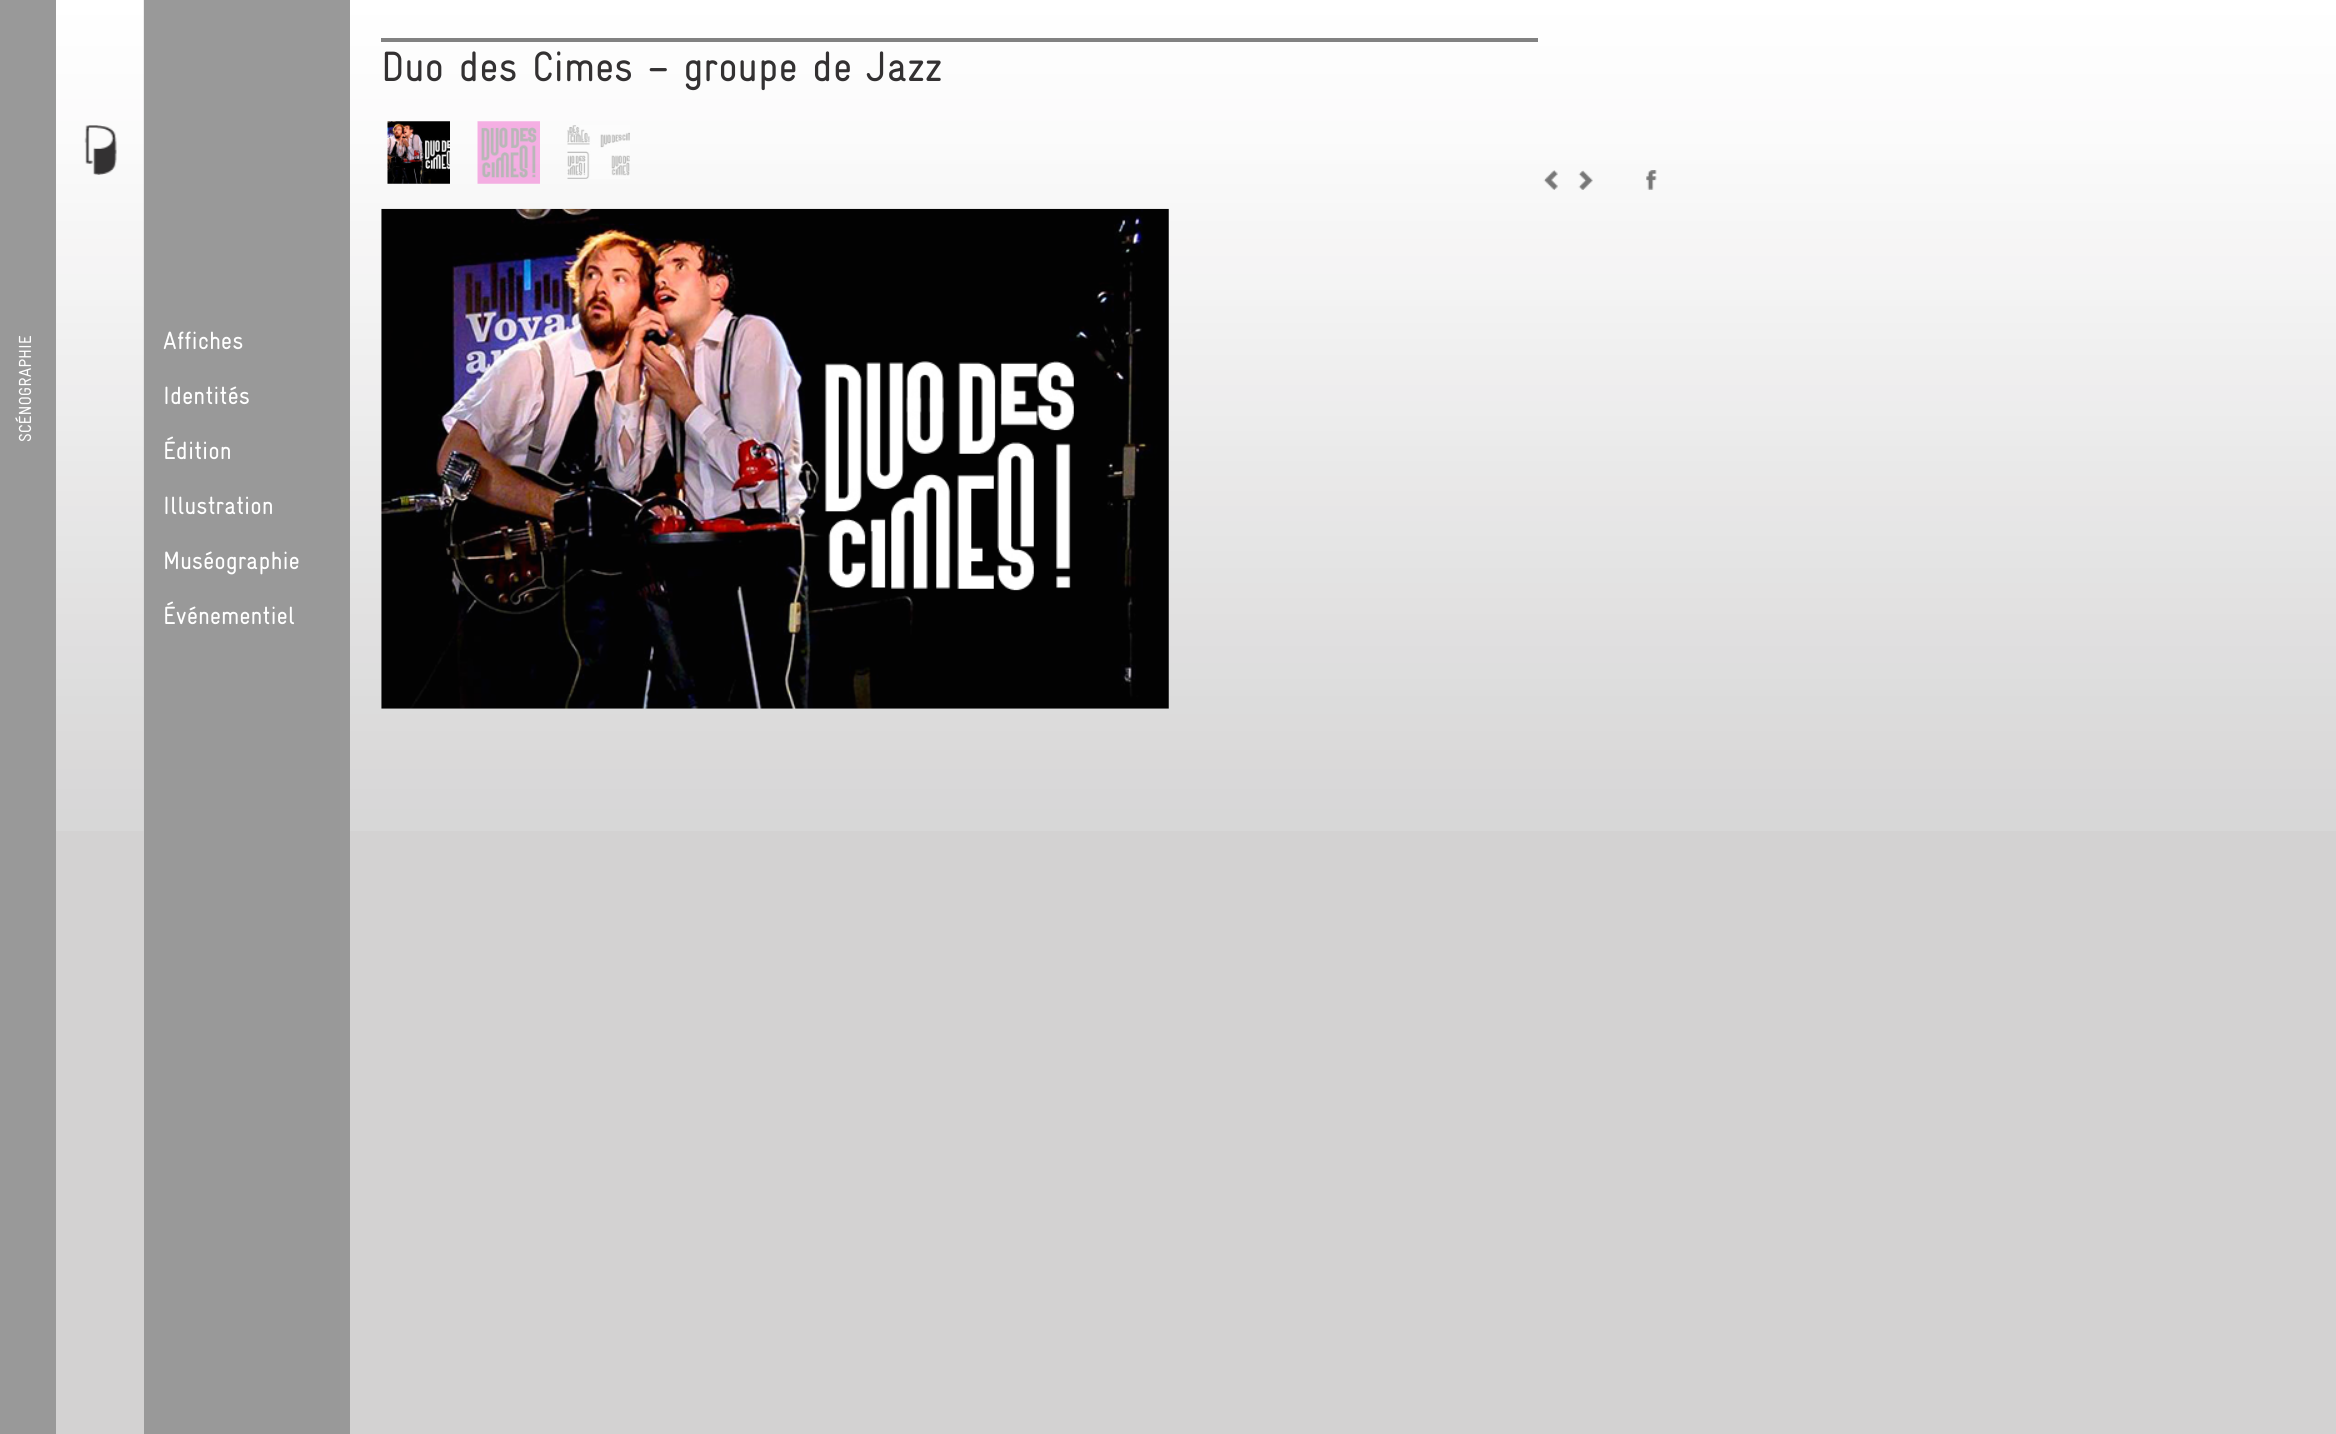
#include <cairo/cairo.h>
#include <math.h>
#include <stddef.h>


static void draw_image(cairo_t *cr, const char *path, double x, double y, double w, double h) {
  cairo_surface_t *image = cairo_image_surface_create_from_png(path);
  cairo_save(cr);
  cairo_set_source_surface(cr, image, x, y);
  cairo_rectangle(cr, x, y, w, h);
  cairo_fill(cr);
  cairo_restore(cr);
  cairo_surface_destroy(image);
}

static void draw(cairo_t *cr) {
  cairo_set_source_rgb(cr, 211 / 255.0, 210 / 255.0, 210 / 255.0);
  cairo_paint(cr);
  draw_image(cr, "images/1.png", 350, 0, 1986, 831);
  cairo_set_source_rgb(cr, 130 / 255.0, 130 / 255.0, 130 / 255.0);
  cairo_rectangle(cr, 381, 38, 1157, 4);
  cairo_fill(cr);
  draw_image(cr, "images/2.png", 387, 121, 63, 63);
  draw_image(cr, "images/3.png", 477, 121, 63, 63);
  draw_image(cr, "images/4.png", 567, 125, 63, 54);
  draw_image(cr, "images/5.png", 1543, 170, 15, 20);
  draw_image(cr, "images/6.png", 1578, 170, 15, 20);
  draw_image(cr, "images/7.png", 1646, 170, 11, 20);
  draw_image(cr, "images/8.png", 381, 208, 788, 501);
  cairo_set_source_rgb(cr, 153 / 255.0, 153 / 255.0, 153 / 255.0);
  cairo_rectangle(cr, 0, 0, 350, 1434);
  cairo_fill(cr);
  cairo_set_source_rgb(cr, 211 / 255.0, 210 / 255.0, 210 / 255.0);
  cairo_rectangle(cr, 56, 0, 88, 1434);
  cairo_fill(cr);
  draw_image(cr, "images/9.png", 56, 0, 88, 831);
  draw_image(cr, "images/10.png", 84, 125, 33, 50);
  cairo_select_font_face(cr, "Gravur", CAIRO_FONT_SLANT_NORMAL, CAIRO_FONT_WEIGHT_NORMAL);
  cairo_set_font_size(cr, 42.5);
  cairo_set_source_rgb(cr, 51 / 255.0, 49 / 255.0, 50 / 255.0);
  cairo_move_to(cr, 381, 81);
  cairo_show_text(cr, "Duo des Cimes – groupe de Jazz");
  cairo_set_font_size(cr, 17.5);
  cairo_set_source_rgb(cr, 1, 1, 1);
  cairo_save(cr);
  cairo_translate(cr, 31, 442);
  cairo_rotate(cr, -90 * M_PI / 180);
  cairo_move_to(cr, 0, 0);
  cairo_show_text(cr, "SCÉNOGRAPHIE");
  cairo_restore(cr);
  cairo_set_font_size(cr, 25);
  cairo_move_to(cr, 163, 349);
  cairo_show_text(cr, "Affiches");
  cairo_move_to(cr, 163, 404);
  cairo_show_text(cr, "Identités");
  cairo_move_to(cr, 163, 459);
  cairo_show_text(cr, "Édition");
  cairo_move_to(cr, 163, 514);
  cairo_show_text(cr, "Illustration");
  cairo_move_to(cr, 163, 569);
  cairo_show_text(cr, "Muséographie");
  cairo_move_to(cr, 163, 624);
  cairo_show_text(cr, "Événementiel");
}

int main(void) {
  cairo_surface_t *surface = cairo_image_surface_create(CAIRO_FORMAT_RGB24, 2336, 1434);
  cairo_t *cr = cairo_create(surface);
  cairo_font_options_t *options = cairo_font_options_create();
  cairo_font_options_set_hint_metrics(options, CAIRO_HINT_METRICS_OFF);
  cairo_font_options_set_hint_style(options, CAIRO_HINT_STYLE_NONE);
  cairo_set_font_options(cr, options);
  cairo_set_miter_limit(cr, 4);
  draw(cr);
  cairo_surface_write_to_png(surface, "out.png");
  cairo_font_options_destroy(options);
  cairo_destroy(cr);
  cairo_surface_destroy(surface);
  return 0;
}
